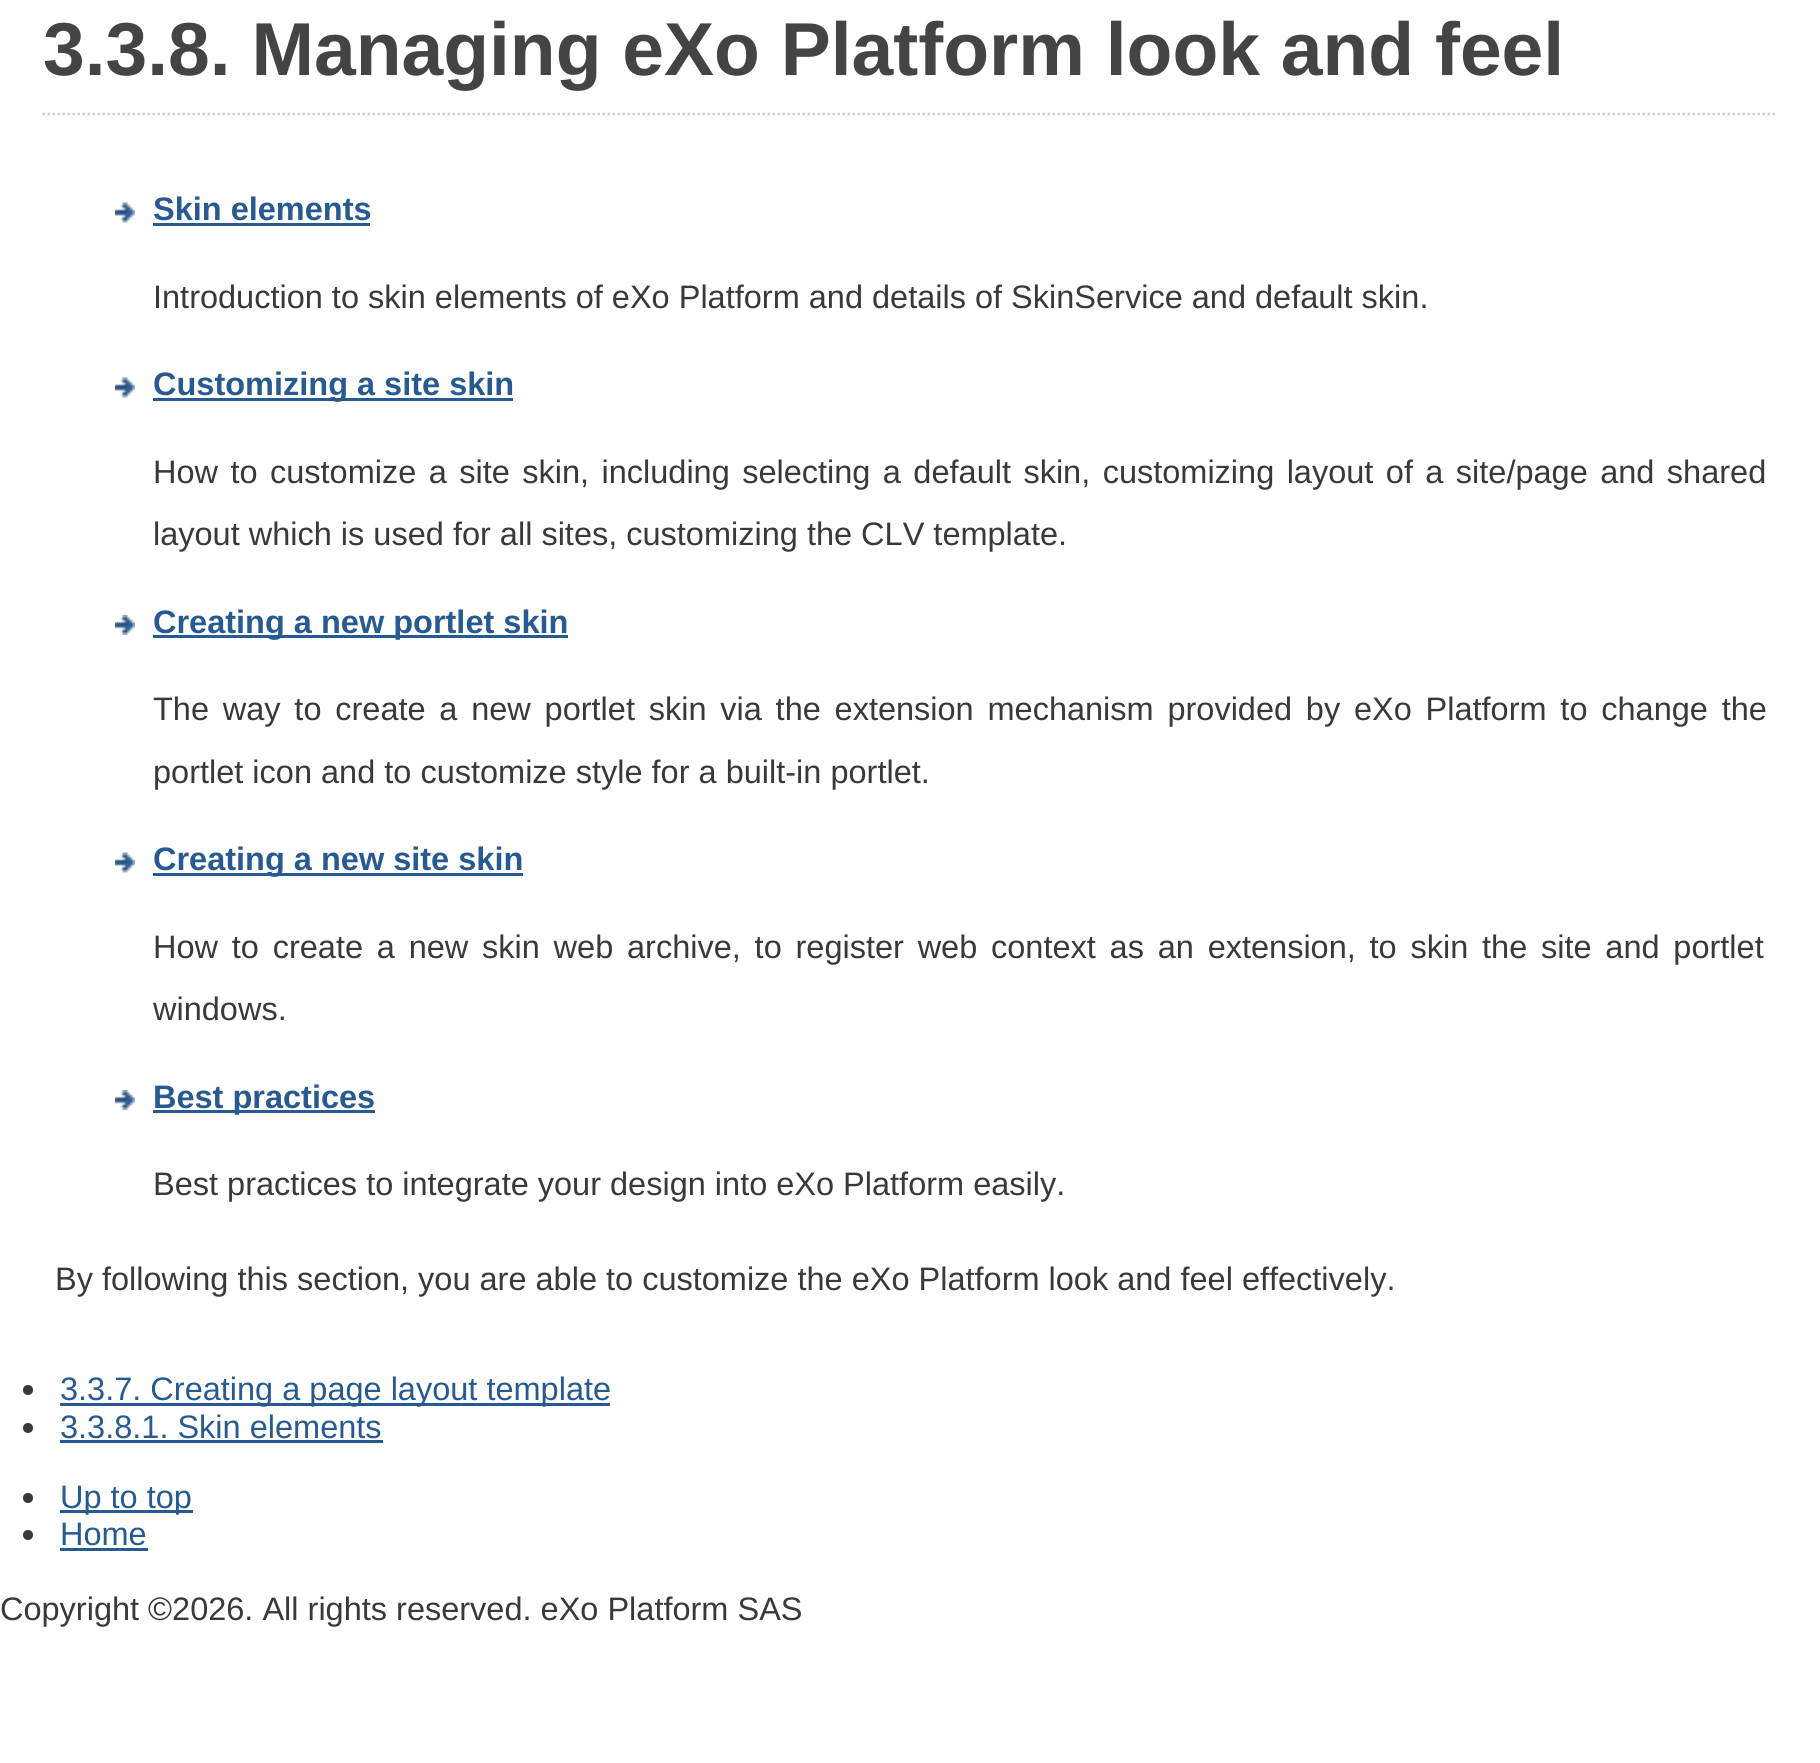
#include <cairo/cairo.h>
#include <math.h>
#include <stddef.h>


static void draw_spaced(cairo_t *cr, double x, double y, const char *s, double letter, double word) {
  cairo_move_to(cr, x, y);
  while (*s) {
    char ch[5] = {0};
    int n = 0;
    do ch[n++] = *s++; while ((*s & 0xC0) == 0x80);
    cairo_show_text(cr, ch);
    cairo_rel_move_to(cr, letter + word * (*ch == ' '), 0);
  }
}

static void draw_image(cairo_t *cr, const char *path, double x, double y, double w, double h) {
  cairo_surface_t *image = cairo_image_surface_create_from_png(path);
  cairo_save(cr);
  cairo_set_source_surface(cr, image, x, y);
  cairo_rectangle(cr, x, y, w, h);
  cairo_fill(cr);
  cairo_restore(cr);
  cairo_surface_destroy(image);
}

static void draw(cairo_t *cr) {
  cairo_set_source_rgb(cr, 1, 1, 1);
  cairo_paint(cr);
  cairo_new_path(cr);
  cairo_move_to(cr, 42.5, 114);
  cairo_line_to(cr, 1777.5, 114);
  cairo_set_source_rgb(cr, 207 / 255.0, 207 / 255.0, 207 / 255.0);
  cairo_set_line_width(cr, 2.5);
  cairo_set_dash(cr, (double[]){2.5, 2.5}, 2, 0);
  cairo_stroke(cr);
  draw_image(cr, "images/1.png", 115, 202, 20, 21);
  cairo_set_source_rgb(cr, 40 / 255.0, 90 / 255.0, 146 / 255.0);
  cairo_rectangle(cr, 153, 223, 217, 3);
  cairo_fill(cr);
  draw_image(cr, "images/1.png", 115, 377, 20, 21);
  cairo_rectangle(cr, 153, 398, 360, 3);
  cairo_fill(cr);
  draw_image(cr, "images/2.png", 115, 615, 20, 20);
  cairo_rectangle(cr, 153, 635, 415, 3);
  cairo_fill(cr);
  draw_image(cr, "images/1.png", 115, 852, 20, 21);
  cairo_rectangle(cr, 153, 873, 370, 3);
  cairo_fill(cr);
  draw_image(cr, "images/2.png", 115, 1090, 20, 20);
  cairo_rectangle(cr, 153, 1110, 222, 3);
  cairo_fill(cr);
  cairo_set_source_rgb(cr, 57 / 255.0, 57 / 255.0, 57 / 255.0);
  cairo_arc(cr, 28, 1390, 5, 0, 2 * M_PI);
  cairo_fill(cr);
  cairo_set_source_rgb(cr, 40 / 255.0, 90 / 255.0, 146 / 255.0);
  cairo_rectangle(cr, 60, 1403, 550, 3);
  cairo_fill(cr);
  cairo_set_source_rgb(cr, 57 / 255.0, 57 / 255.0, 57 / 255.0);
  cairo_arc(cr, 28, 1428, 5, 0, 2 * M_PI);
  cairo_fill(cr);
  cairo_set_source_rgb(cr, 40 / 255.0, 90 / 255.0, 146 / 255.0);
  cairo_rectangle(cr, 60, 1440, 323, 3);
  cairo_fill(cr);
  cairo_set_source_rgb(cr, 57 / 255.0, 57 / 255.0, 57 / 255.0);
  cairo_arc(cr, 28, 1498, 5, 0, 2 * M_PI);
  cairo_fill(cr);
  cairo_set_source_rgb(cr, 40 / 255.0, 90 / 255.0, 146 / 255.0);
  cairo_rectangle(cr, 60, 1510, 133, 3);
  cairo_fill(cr);
  cairo_set_source_rgb(cr, 57 / 255.0, 57 / 255.0, 57 / 255.0);
  cairo_arc(cr, 28, 1535, 5, 0, 2 * M_PI);
  cairo_fill(cr);
  cairo_set_source_rgb(cr, 40 / 255.0, 90 / 255.0, 146 / 255.0);
  cairo_rectangle(cr, 60, 1548, 88, 3);
  cairo_fill(cr);
  cairo_select_font_face(cr, "Liberation Sans", CAIRO_FONT_SLANT_NORMAL, CAIRO_FONT_WEIGHT_BOLD);
  cairo_set_font_size(cr, 75);
  cairo_set_source_rgb(cr, 68 / 255.0, 68 / 255.0, 68 / 255.0);
  cairo_move_to(cr, 43, 75);
  cairo_show_text(cr, "3.3.8. Managing eXo Platform look and feel");
  cairo_set_font_size(cr, 32.5);
  cairo_set_source_rgb(cr, 40 / 255.0, 90 / 255.0, 146 / 255.0);
  cairo_move_to(cr, 153, 220);
  cairo_show_text(cr, "Skin elements");
  cairo_select_font_face(cr, "Liberation Sans", CAIRO_FONT_SLANT_NORMAL, CAIRO_FONT_WEIGHT_NORMAL);
  cairo_set_source_rgb(cr, 57 / 255.0, 57 / 255.0, 57 / 255.0);
  cairo_move_to(cr, 153, 308);
  cairo_show_text(cr, "Introduction to skin elements of eXo Platform and details of SkinService and default skin.");
  cairo_select_font_face(cr, "Liberation Sans", CAIRO_FONT_SLANT_NORMAL, CAIRO_FONT_WEIGHT_BOLD);
  cairo_set_source_rgb(cr, 40 / 255.0, 90 / 255.0, 146 / 255.0);
  cairo_move_to(cr, 153, 395);
  cairo_show_text(cr, "Customizing a site skin");
  cairo_select_font_face(cr, "Liberation Sans", CAIRO_FONT_SLANT_NORMAL, CAIRO_FONT_WEIGHT_NORMAL);
  cairo_set_source_rgb(cr, 57 / 255.0, 57 / 255.0, 57 / 255.0);
  draw_spaced(cr, 153, 483, "How to customize a site skin, including selecting a default skin, customizing layout of a site/page and shared", 0, 3.4);
  cairo_move_to(cr, 153, 545);
  cairo_show_text(cr, "layout which is used for all sites, customizing the CLV template.");
  cairo_select_font_face(cr, "Liberation Sans", CAIRO_FONT_SLANT_NORMAL, CAIRO_FONT_WEIGHT_BOLD);
  cairo_set_source_rgb(cr, 40 / 255.0, 90 / 255.0, 146 / 255.0);
  cairo_move_to(cr, 153, 633);
  cairo_show_text(cr, "Creating a new portlet skin");
  cairo_select_font_face(cr, "Liberation Sans", CAIRO_FONT_SLANT_NORMAL, CAIRO_FONT_WEIGHT_NORMAL);
  cairo_set_source_rgb(cr, 57 / 255.0, 57 / 255.0, 57 / 255.0);
  draw_spaced(cr, 153, 720, "The way to create a new portlet skin via the extension mechanism provided by eXo Platform to change the", 0, 4.75);
  cairo_move_to(cr, 153, 783);
  cairo_show_text(cr, "portlet icon and to customize style for a built-in portlet.");
  cairo_select_font_face(cr, "Liberation Sans", CAIRO_FONT_SLANT_NORMAL, CAIRO_FONT_WEIGHT_BOLD);
  cairo_set_source_rgb(cr, 40 / 255.0, 90 / 255.0, 146 / 255.0);
  cairo_move_to(cr, 153, 870);
  cairo_show_text(cr, "Creating a new site skin");
  cairo_select_font_face(cr, "Liberation Sans", CAIRO_FONT_SLANT_NORMAL, CAIRO_FONT_WEIGHT_NORMAL);
  cairo_set_source_rgb(cr, 57 / 255.0, 57 / 255.0, 57 / 255.0);
  draw_spaced(cr, 153, 958, "How to create a new skin web archive, to register web context as an extension, to skin the site and portlet", 0, 4.75);
  cairo_move_to(cr, 153, 1020);
  cairo_show_text(cr, "windows.");
  cairo_select_font_face(cr, "Liberation Sans", CAIRO_FONT_SLANT_NORMAL, CAIRO_FONT_WEIGHT_BOLD);
  cairo_set_source_rgb(cr, 40 / 255.0, 90 / 255.0, 146 / 255.0);
  cairo_move_to(cr, 153, 1108);
  cairo_show_text(cr, "Best practices");
  cairo_select_font_face(cr, "Liberation Sans", CAIRO_FONT_SLANT_NORMAL, CAIRO_FONT_WEIGHT_NORMAL);
  cairo_set_source_rgb(cr, 57 / 255.0, 57 / 255.0, 57 / 255.0);
  cairo_move_to(cr, 153, 1195);
  cairo_show_text(cr, "Best practices to integrate your design into eXo Platform easily.");
  cairo_move_to(cr, 55, 1290);
  cairo_show_text(cr, "By following this section, you are able to customize the eXo Platform look and feel effectively.");
  cairo_set_source_rgb(cr, 40 / 255.0, 90 / 255.0, 146 / 255.0);
  cairo_move_to(cr, 60, 1400);
  cairo_show_text(cr, "3.3.7. Creating a page layout template");
  cairo_move_to(cr, 60, 1438);
  cairo_show_text(cr, "3.3.8.1. Skin elements");
  cairo_move_to(cr, 60, 1508);
  cairo_show_text(cr, "Up to top");
  cairo_move_to(cr, 60, 1545);
  cairo_show_text(cr, "Home");
  cairo_set_source_rgb(cr, 57 / 255.0, 57 / 255.0, 57 / 255.0);
  cairo_move_to(cr, 0, 1620);
  cairo_show_text(cr, "Copyright ©2026. All rights reserved. eXo Platform SAS");
}

int main(void) {
  cairo_surface_t *surface = cairo_image_surface_create(CAIRO_FORMAT_RGB24, 1820, 1763);
  cairo_t *cr = cairo_create(surface);
  cairo_font_options_t *options = cairo_font_options_create();
  cairo_font_options_set_hint_metrics(options, CAIRO_HINT_METRICS_OFF);
  cairo_font_options_set_hint_style(options, CAIRO_HINT_STYLE_NONE);
  cairo_set_font_options(cr, options);
  cairo_set_miter_limit(cr, 4);
  draw(cr);
  cairo_surface_write_to_png(surface, "out.png");
  cairo_font_options_destroy(options);
  cairo_destroy(cr);
  cairo_surface_destroy(surface);
  return 0;
}
